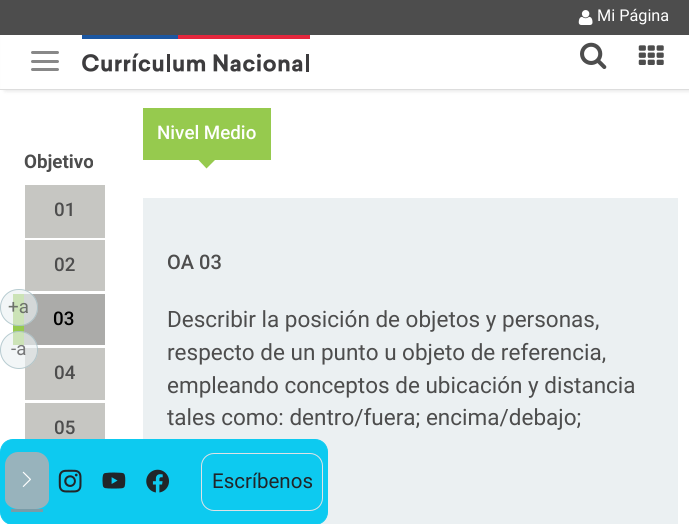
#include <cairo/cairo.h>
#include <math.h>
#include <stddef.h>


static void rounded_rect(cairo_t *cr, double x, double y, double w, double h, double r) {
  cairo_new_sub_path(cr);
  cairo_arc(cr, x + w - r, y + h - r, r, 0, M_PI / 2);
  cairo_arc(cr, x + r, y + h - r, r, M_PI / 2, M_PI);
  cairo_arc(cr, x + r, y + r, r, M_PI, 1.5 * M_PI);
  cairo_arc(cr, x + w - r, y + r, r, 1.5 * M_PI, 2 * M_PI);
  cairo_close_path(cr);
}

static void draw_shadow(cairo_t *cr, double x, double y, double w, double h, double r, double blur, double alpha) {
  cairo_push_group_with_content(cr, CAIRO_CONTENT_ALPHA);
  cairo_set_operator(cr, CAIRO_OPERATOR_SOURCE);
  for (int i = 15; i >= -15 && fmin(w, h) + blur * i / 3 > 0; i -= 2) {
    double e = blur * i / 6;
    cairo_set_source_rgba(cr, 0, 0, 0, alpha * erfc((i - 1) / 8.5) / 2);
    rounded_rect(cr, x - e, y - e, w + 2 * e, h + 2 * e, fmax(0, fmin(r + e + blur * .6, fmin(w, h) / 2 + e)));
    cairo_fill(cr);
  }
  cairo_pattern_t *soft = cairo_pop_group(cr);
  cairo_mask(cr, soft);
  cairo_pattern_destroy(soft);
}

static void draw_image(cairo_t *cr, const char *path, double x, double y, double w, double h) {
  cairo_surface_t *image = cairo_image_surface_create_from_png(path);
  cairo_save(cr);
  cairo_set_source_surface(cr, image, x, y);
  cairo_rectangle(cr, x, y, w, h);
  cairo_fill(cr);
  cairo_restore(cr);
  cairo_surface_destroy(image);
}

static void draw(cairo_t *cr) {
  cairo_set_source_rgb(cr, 1, 1, 1);
  cairo_paint(cr);
  cairo_set_source_rgb(cr, 198 / 255.0, 198 / 255.0, 194 / 255.0);
  cairo_rectangle(cr, 25, 240, 80, 51);
  cairo_fill(cr);
  cairo_set_source_rgb(cr, 171 / 255.0, 171 / 255.0, 169 / 255.0);
  cairo_rectangle(cr, 24, 294, 81, 51);
  cairo_fill(cr);
  cairo_set_source_rgb(cr, 150 / 255.0, 202 / 255.0, 78 / 255.0);
  cairo_rectangle(cr, 13, 294, 11, 51);
  cairo_fill(cr);
  cairo_set_source_rgba(cr, 235 / 255.0, 240 / 255.0, 242 / 255.0, 0.64);
  rounded_rect(cr, 0, 289, 38, 37, 18.5);
  cairo_fill(cr);
  rounded_rect(cr, 0.5, 289.5, 37, 36, 18);
  cairo_set_source_rgba(cr, 152 / 255.0, 179 / 255.0, 188 / 255.0, 0.64);
  cairo_set_line_width(cr, 1);
  cairo_stroke(cr);
  cairo_set_source_rgb(cr, 198 / 255.0, 198 / 255.0, 194 / 255.0);
  cairo_rectangle(cr, 25, 348, 80, 52);
  cairo_fill(cr);
  cairo_set_source_rgba(cr, 235 / 255.0, 240 / 255.0, 242 / 255.0, 0.64);
  cairo_arc(cr, 19, 350, 19, 0, 2 * M_PI);
  cairo_fill(cr);
  cairo_arc(cr, 19, 350, 18.5, 0, 2 * M_PI);
  cairo_set_source_rgba(cr, 152 / 255.0, 179 / 255.0, 188 / 255.0, 0.64);
  cairo_stroke(cr);
  cairo_set_source_rgb(cr, 0, 0, 0);
  draw_shadow(cr, 5, 28, 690, 62, 0, 2.5, 0.15);
  cairo_set_source_rgb(cr, 1, 1, 1);
  cairo_rectangle(cr, 1, 35, 688, 54);
  cairo_fill(cr);
  cairo_set_source_rgb(cr, 221 / 255.0, 221 / 255.0, 221 / 255.0);
  cairo_rectangle(cr, 0, 89, 689, 1);
  cairo_fill(cr);
  cairo_set_source_rgb(cr, 77 / 255.0, 77 / 255.0, 77 / 255.0);
  cairo_rectangle(cr, 0, 0, 689, 35);
  cairo_fill(cr);
  draw_image(cr, "images/1.png", 578, 10, 15, 15);
  cairo_set_source_rgb(cr, 136 / 255.0, 136 / 255.0, 136 / 255.0);
  rounded_rect(cr, 31, 51, 28, 3, 1.5);
  cairo_fill(cr);
  rounded_rect(cr, 31, 60, 28, 3, 1.5);
  cairo_fill(cr);
  rounded_rect(cr, 31, 68, 28, 3, 1.5);
  cairo_fill(cr);
  draw_image(cr, "images/2.png", 82, 35, 228, 37);
  draw_image(cr, "images/3.png", 580, 42, 27, 27);
  draw_image(cr, "images/4.png", 638, 45, 26, 20);
  cairo_set_source_rgb(cr, 198 / 255.0, 198 / 255.0, 194 / 255.0);
  cairo_rectangle(cr, 25, 185, 80, 53);
  cairo_fill(cr);
  cairo_rectangle(cr, 25, 403, 80, 36);
  cairo_fill(cr);
  cairo_set_source_rgb(cr, 150 / 255.0, 202 / 255.0, 78 / 255.0);
  cairo_rectangle(cr, 143, 108, 128, 52);
  cairo_fill(cr);
  cairo_new_path(cr);
  cairo_move_to(cr, 206.5, 150.5);
  cairo_line_to(cr, 215.5, 159.5);
  cairo_line_to(cr, 206.5, 168.5);
  cairo_line_to(cr, 198, 159.5);
  cairo_close_path(cr);
  cairo_fill(cr);
  cairo_set_source_rgb(cr, 235 / 255.0, 240 / 255.0, 242 / 255.0);
  cairo_rectangle(cr, 143, 198, 535, 326);
  cairo_fill(cr);
  cairo_set_source_rgb(cr, 13 / 255.0, 202 / 255.0, 240 / 255.0);
  rounded_rect(cr, 0.5, 439.5, 327, 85, 12.5);
  cairo_fill_preserve(cr);
  cairo_stroke(cr);
  cairo_set_source_rgb(cr, 152 / 255.0, 179 / 255.0, 188 / 255.0);
  cairo_new_path(cr);
  cairo_move_to(cr, 18, 452);
  cairo_line_to(cr, 36, 452);
  cairo_curve_to(cr, 43, 452, 49, 458, 49, 465);
  cairo_line_to(cr, 49, 499);
  cairo_curve_to(cr, 49, 504, 43, 509, 36, 509);
  cairo_line_to(cr, 18, 509);
  cairo_curve_to(cr, 11, 509, 5, 504, 5, 499);
  cairo_line_to(cr, 5, 465);
  cairo_curve_to(cr, 5, 458, 11, 452, 18, 452);
  cairo_close_path(cr);
  cairo_fill(cr);
  cairo_set_source_rgb(cr, 121 / 255.0, 156 / 255.0, 168 / 255.0);
  cairo_rectangle(cr, 11, 509, 32, 3);
  cairo_fill(cr);
  draw_image(cr, "images/5.png", 22, 471, 9, 16);
  draw_image(cr, "images/6.png", 58, 469, 24, 24);
  draw_image(cr, "images/7.png", 102, 472, 24, 17);
  draw_image(cr, "images/8.png", 146, 469, 23, 24);
  rounded_rect(cr, 201.5, 453.5, 121, 57, 12.5);
  cairo_set_source_rgb(cr, 222 / 255.0, 226 / 255.0, 230 / 255.0);
  cairo_stroke(cr);
  cairo_select_font_face(cr, "Roboto", CAIRO_FONT_SLANT_NORMAL, CAIRO_FONT_WEIGHT_NORMAL);
  cairo_set_font_size(cr, 18.75);
  cairo_set_source_rgb(cr, 109 / 255.0, 114 / 255.0, 106 / 255.0);
  cairo_move_to(cr, 8, 313);
  cairo_show_text(cr, "+a");
  cairo_set_source_rgb(cr, 119 / 255.0, 120 / 255.0, 121 / 255.0);
  cairo_move_to(cr, 11, 355);
  cairo_show_text(cr, "-a");
  cairo_set_font_size(cr, 16.25);
  cairo_set_source_rgb(cr, 1, 1, 1);
  cairo_move_to(cr, 597, 21);
  cairo_show_text(cr, "Mi Página");
  cairo_select_font_face(cr, "Roboto", CAIRO_FONT_SLANT_NORMAL, CAIRO_FONT_WEIGHT_BOLD);
  cairo_set_font_size(cr, 18.75);
  cairo_set_source_rgb(cr, 77 / 255.0, 77 / 255.0, 77 / 255.0);
  cairo_move_to(cr, 24, 168);
  cairo_show_text(cr, "Objetivo");
  cairo_select_font_face(cr, "Roboto Medium", CAIRO_FONT_SLANT_NORMAL, CAIRO_FONT_WEIGHT_NORMAL);
  cairo_move_to(cr, 54, 216);
  cairo_show_text(cr, "01");
  cairo_move_to(cr, 54, 271);
  cairo_show_text(cr, "02");
  cairo_set_source_rgb(cr, 0, 0, 0);
  cairo_move_to(cr, 53, 325);
  cairo_show_text(cr, "03");
  cairo_set_source_rgb(cr, 77 / 255.0, 77 / 255.0, 77 / 255.0);
  cairo_move_to(cr, 54, 379);
  cairo_show_text(cr, "04");
  cairo_move_to(cr, 54, 434);
  cairo_show_text(cr, "05");
  cairo_set_source_rgb(cr, 1, 1, 1);
  cairo_move_to(cr, 157, 139);
  cairo_show_text(cr, "Nivel Medio");
  cairo_set_font_size(cr, 20);
  cairo_set_source_rgb(cr, 77 / 255.0, 77 / 255.0, 77 / 255.0);
  cairo_move_to(cr, 167, 269);
  cairo_show_text(cr, "OA 03");
  cairo_select_font_face(cr, "Roboto", CAIRO_FONT_SLANT_NORMAL, CAIRO_FONT_WEIGHT_NORMAL);
  cairo_set_font_size(cr, 22.5);
  cairo_move_to(cr, 167, 327);
  cairo_show_text(cr, "Describir la posición de objetos y personas,");
  cairo_move_to(cr, 167, 360);
  cairo_show_text(cr, "respecto de un punto u objeto de referencia,");
  cairo_move_to(cr, 167, 393);
  cairo_show_text(cr, "empleando conceptos de ubicación y distancia");
  cairo_move_to(cr, 167, 425);
  cairo_show_text(cr, "tales como: dentro/fuera; encima/debajo;");
  cairo_set_font_size(cr, 20.5);
  cairo_set_source_rgb(cr, 33 / 255.0, 37 / 255.0, 41 / 255.0);
  cairo_move_to(cr, 212, 488);
  cairo_show_text(cr, "Escríbenos");
}

int main(void) {
  cairo_surface_t *surface = cairo_image_surface_create(CAIRO_FORMAT_RGB24, 689, 524);
  cairo_t *cr = cairo_create(surface);
  cairo_font_options_t *options = cairo_font_options_create();
  cairo_font_options_set_hint_metrics(options, CAIRO_HINT_METRICS_OFF);
  cairo_font_options_set_hint_style(options, CAIRO_HINT_STYLE_NONE);
  cairo_set_font_options(cr, options);
  cairo_set_miter_limit(cr, 4);
  draw(cr);
  cairo_surface_write_to_png(surface, "out.png");
  cairo_font_options_destroy(options);
  cairo_destroy(cr);
  cairo_surface_destroy(surface);
  return 0;
}
